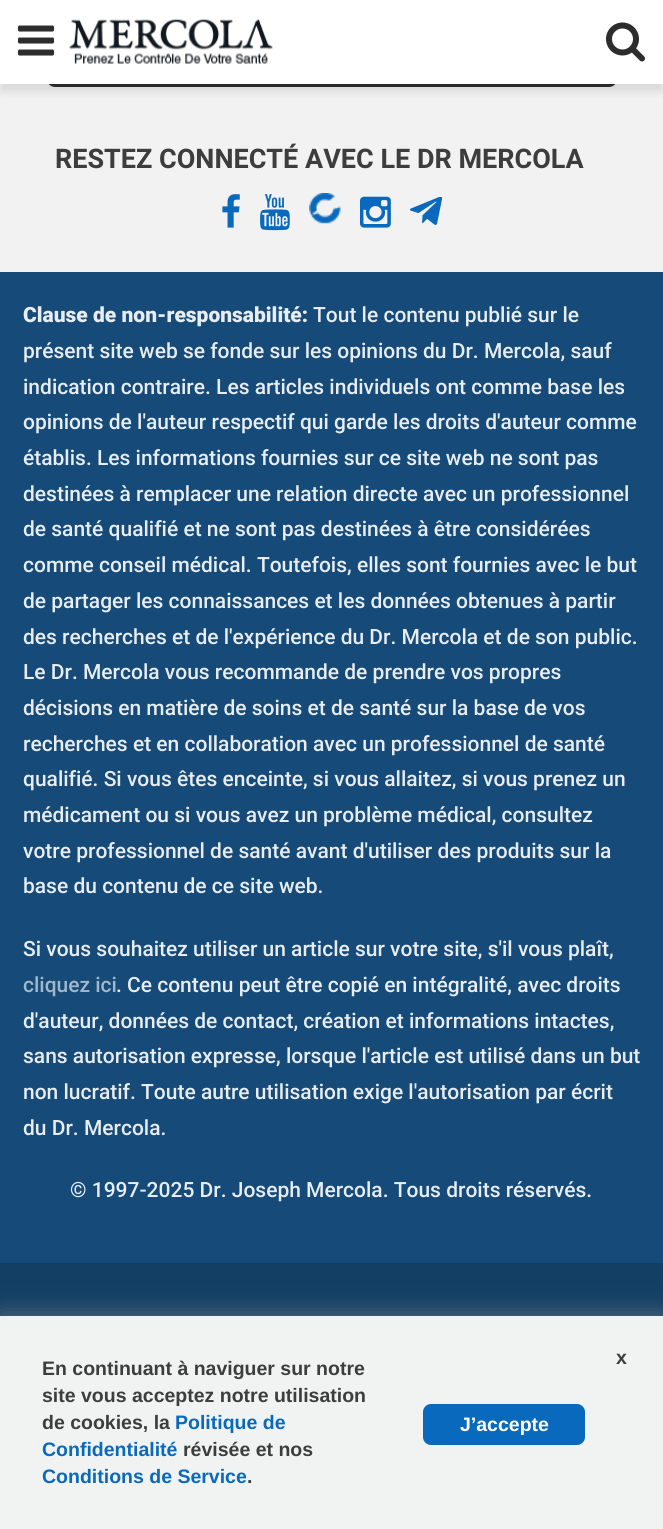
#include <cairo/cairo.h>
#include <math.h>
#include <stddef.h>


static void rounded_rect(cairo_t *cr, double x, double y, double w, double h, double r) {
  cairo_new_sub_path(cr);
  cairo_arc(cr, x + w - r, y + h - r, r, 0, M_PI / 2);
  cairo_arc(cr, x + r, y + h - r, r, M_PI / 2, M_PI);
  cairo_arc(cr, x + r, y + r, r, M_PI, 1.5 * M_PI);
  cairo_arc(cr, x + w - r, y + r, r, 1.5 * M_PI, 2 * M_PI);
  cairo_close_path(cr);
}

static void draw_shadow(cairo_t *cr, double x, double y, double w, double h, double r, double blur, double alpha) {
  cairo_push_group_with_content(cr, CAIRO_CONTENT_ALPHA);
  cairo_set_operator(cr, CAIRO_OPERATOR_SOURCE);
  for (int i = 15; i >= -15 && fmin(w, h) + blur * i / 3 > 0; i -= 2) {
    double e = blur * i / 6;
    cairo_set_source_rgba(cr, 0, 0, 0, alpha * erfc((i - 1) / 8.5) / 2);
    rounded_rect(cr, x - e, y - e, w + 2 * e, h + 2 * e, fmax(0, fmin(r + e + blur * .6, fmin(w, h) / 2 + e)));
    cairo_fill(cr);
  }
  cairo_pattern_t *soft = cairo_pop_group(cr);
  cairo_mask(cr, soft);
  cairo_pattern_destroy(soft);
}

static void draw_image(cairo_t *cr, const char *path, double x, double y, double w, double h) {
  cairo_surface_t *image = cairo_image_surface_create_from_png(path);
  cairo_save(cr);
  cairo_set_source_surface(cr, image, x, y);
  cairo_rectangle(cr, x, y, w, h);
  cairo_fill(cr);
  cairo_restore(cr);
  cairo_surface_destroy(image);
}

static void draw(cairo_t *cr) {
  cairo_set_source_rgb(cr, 242 / 255.0, 242 / 255.0, 242 / 255.0);
  cairo_paint(cr);
  cairo_set_source_rgb(cr, 45 / 255.0, 45 / 255.0, 45 / 255.0);
  rounded_rect(cr, 48, 30, 568, 56, 7);
  cairo_fill_preserve(cr);
  cairo_stroke(cr);
  cairo_set_source_rgb(cr, 0, 0, 0);
  draw_shadow(cr, 0, 8, 663, 84, 0, 4, 0.1);
  cairo_set_source_rgb(cr, 1, 1, 1);
  cairo_rectangle(cr, 0, 0, 663, 84);
  cairo_fill(cr);
  draw_image(cr, "images/1.png", 18, 25, 36, 31);
  draw_image(cr, "images/2.png", 69, 19, 204, 45);
  draw_image(cr, "images/3.png", 606, 22, 39, 40);
  draw_image(cr, "images/4.png", 222, 194, 18, 34);
  draw_image(cr, "images/5.png", 260, 194, 30, 37);
  draw_image(cr, "images/6.png", 309, 193, 32, 31);
  draw_image(cr, "images/7.png", 360, 196, 31, 32);
  draw_image(cr, "images/8.png", 410, 197, 33, 28);
  cairo_set_source_rgb(cr, 22 / 255.0, 74 / 255.0, 120 / 255.0);
  cairo_rectangle(cr, 0, 272, 663, 991);
  cairo_fill(cr);
  cairo_set_source_rgb(cr, 19 / 255.0, 63 / 255.0, 100 / 255.0);
  cairo_rectangle(cr, 0, 1263, 663, 53);
  cairo_fill(cr);
  cairo_set_source_rgb(cr, 146 / 255.0, 144 / 255.0, 144 / 255.0);
  draw_shadow(cr, 0, 1313, 663, 214, 0, 11, 0.5);
  cairo_set_source_rgb(cr, 241 / 255.0, 242 / 255.0, 242 / 255.0);
  cairo_rectangle(cr, 0, 1316, 663, 213);
  cairo_fill(cr);
  cairo_set_source_rgb(cr, 8 / 255.0, 105 / 255.0, 189 / 255.0);
  rounded_rect(cr, 423, 1404, 162, 41, 8);
  cairo_fill(cr);
  cairo_select_font_face(cr, "Roboto", CAIRO_FONT_SLANT_NORMAL, CAIRO_FONT_WEIGHT_BOLD);
  cairo_set_font_size(cr, 27);
  cairo_set_source_rgb(cr, 61 / 255.0, 61 / 255.0, 61 / 255.0);
  cairo_move_to(cr, 55, 168);
  cairo_show_text(cr, "RESTEZ CONNECTÉ AVEC LE DR MERCOLA");
  cairo_select_font_face(cr, "Roboto Black", CAIRO_FONT_SLANT_NORMAL, CAIRO_FONT_WEIGHT_NORMAL);
  cairo_set_font_size(cr, 21);
  cairo_set_source_rgb(cr, 232 / 255.0, 237 / 255.0, 242 / 255.0);
  cairo_move_to(cr, 23, 322);
  cairo_show_text(cr, "Clause de non-responsabilité:");
  cairo_select_font_face(cr, "Roboto Medium", CAIRO_FONT_SLANT_NORMAL, CAIRO_FONT_WEIGHT_NORMAL);
  cairo_move_to(cr, 313, 322);
  cairo_show_text(cr, "Tout le contenu publié sur le");
  cairo_move_to(cr, 23, 358);
  cairo_show_text(cr, "présent site web se fonde sur les opinions du Dr. Mercola, sauf");
  cairo_move_to(cr, 23, 394);
  cairo_show_text(cr, "indication contraire. Les articles individuels ont comme base les");
  cairo_move_to(cr, 23, 429);
  cairo_show_text(cr, "opinions de l'auteur respectif qui garde les droits d'auteur comme");
  cairo_move_to(cr, 23, 465);
  cairo_show_text(cr, "établis. Les informations fournies sur ce site web ne sont pas");
  cairo_move_to(cr, 23, 501);
  cairo_show_text(cr, "destinées à remplacer une relation directe avec un professionnel");
  cairo_move_to(cr, 23, 536);
  cairo_show_text(cr, "de santé qualifié et ne sont pas destinées à être considérées");
  cairo_move_to(cr, 23, 572);
  cairo_show_text(cr, "comme conseil médical. Toutefois, elles sont fournies avec le but");
  cairo_move_to(cr, 23, 608);
  cairo_show_text(cr, "de partager les connaissances et les données obtenues à partir");
  cairo_move_to(cr, 23, 644);
  cairo_show_text(cr, "des recherches et de l'expérience du Dr. Mercola et de son public.");
  cairo_move_to(cr, 23, 679);
  cairo_show_text(cr, "Le Dr. Mercola vous recommande de prendre vos propres");
  cairo_move_to(cr, 23, 715);
  cairo_show_text(cr, "décisions en matière de soins et de santé sur la base de vos");
  cairo_move_to(cr, 23, 751);
  cairo_show_text(cr, "recherches et en collaboration avec un professionnel de santé");
  cairo_move_to(cr, 23, 786);
  cairo_show_text(cr, "qualifié. Si vous êtes enceinte, si vous allaitez, si vous prenez un");
  cairo_move_to(cr, 23, 822);
  cairo_show_text(cr, "médicament ou si vous avez un problème médical, consultez");
  cairo_move_to(cr, 23, 858);
  cairo_show_text(cr, "votre professionnel de santé avant d'utiliser des produits sur la");
  cairo_move_to(cr, 23, 893);
  cairo_show_text(cr, "base du contenu de ce site web.");
  cairo_move_to(cr, 23, 956);
  cairo_show_text(cr, "Si vous souhaitez utiliser un article sur votre site, s'il vous plaît,");
  cairo_set_source_rgb(cr, 162 / 255.0, 183 / 255.0, 201 / 255.0);
  cairo_move_to(cr, 23, 992);
  cairo_show_text(cr, "cliquez ici");
  cairo_set_source_rgb(cr, 232 / 255.0, 237 / 255.0, 242 / 255.0);
  cairo_move_to(cr, 116, 992);
  cairo_show_text(cr, ". Ce contenu peut être copié en intégralité, avec droits");
  cairo_move_to(cr, 23, 1028);
  cairo_show_text(cr, "d'auteur, données de contact, création et informations intactes,");
  cairo_move_to(cr, 23, 1063);
  cairo_show_text(cr, "sans autorisation expresse, lorsque l'article est utilisé dans un but");
  cairo_move_to(cr, 23, 1099);
  cairo_show_text(cr, "non lucratif. Toute autre utilisation exige l'autorisation par écrit");
  cairo_move_to(cr, 23, 1135);
  cairo_show_text(cr, "du Dr. Mercola.");
  cairo_move_to(cr, 70, 1197);
  cairo_show_text(cr, "© 1997-2025 Dr. Joseph Mercola. Tous droits réservés.");
  cairo_select_font_face(cr, "Liberation Sans", CAIRO_FONT_SLANT_NORMAL, CAIRO_FONT_WEIGHT_BOLD);
  cairo_set_font_size(cr, 19.5);
  cairo_set_source_rgb(cr, 61 / 255.0, 61 / 255.0, 61 / 255.0);
  cairo_move_to(cr, 616, 1364);
  cairo_show_text(cr, "x");
  cairo_move_to(cr, 42, 1375);
  cairo_show_text(cr, "En continuant à naviguer sur notre");
  cairo_move_to(cr, 42, 1402);
  cairo_show_text(cr, "site vous acceptez notre utilisation");
  cairo_move_to(cr, 42, 1429);
  cairo_show_text(cr, "de cookies, la");
  cairo_set_source_rgb(cr, 8 / 255.0, 105 / 255.0, 189 / 255.0);
  cairo_move_to(cr, 175, 1429);
  cairo_show_text(cr, "Politique de");
  cairo_move_to(cr, 42, 1456);
  cairo_show_text(cr, "Confidentialité");
  cairo_set_source_rgb(cr, 61 / 255.0, 61 / 255.0, 61 / 255.0);
  cairo_move_to(cr, 183, 1456);
  cairo_show_text(cr, "révisée et nos");
  cairo_set_source_rgb(cr, 8 / 255.0, 105 / 255.0, 189 / 255.0);
  cairo_move_to(cr, 42, 1483);
  cairo_show_text(cr, "Conditions de Service");
  cairo_set_source_rgb(cr, 61 / 255.0, 61 / 255.0, 61 / 255.0);
  cairo_move_to(cr, 247, 1483);
  cairo_show_text(cr, ".");
  cairo_set_source_rgb(cr, 1, 1, 1);
  cairo_move_to(cr, 460, 1431);
  cairo_show_text(cr, "J’accepte");
}

int main(void) {
  cairo_surface_t *surface = cairo_image_surface_create(CAIRO_FORMAT_RGB24, 663, 1529);
  cairo_t *cr = cairo_create(surface);
  cairo_font_options_t *options = cairo_font_options_create();
  cairo_font_options_set_hint_metrics(options, CAIRO_HINT_METRICS_OFF);
  cairo_font_options_set_hint_style(options, CAIRO_HINT_STYLE_NONE);
  cairo_set_font_options(cr, options);
  cairo_set_miter_limit(cr, 4);
  draw(cr);
  cairo_surface_write_to_png(surface, "out.png");
  cairo_font_options_destroy(options);
  cairo_destroy(cr);
  cairo_surface_destroy(surface);
  return 0;
}
